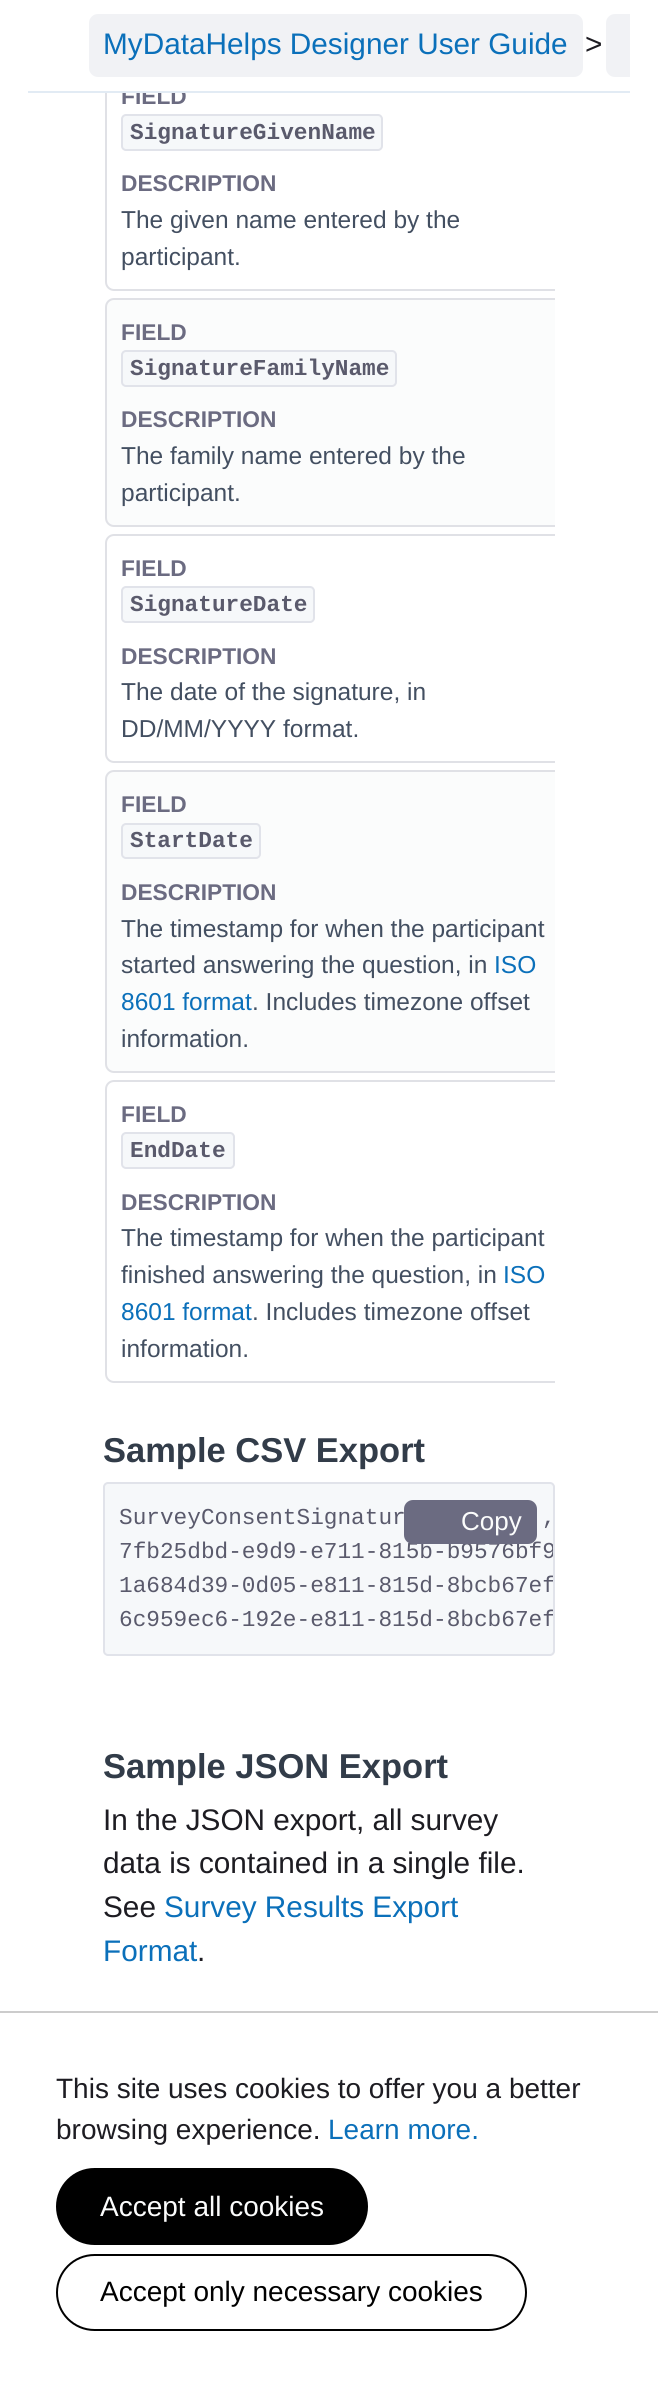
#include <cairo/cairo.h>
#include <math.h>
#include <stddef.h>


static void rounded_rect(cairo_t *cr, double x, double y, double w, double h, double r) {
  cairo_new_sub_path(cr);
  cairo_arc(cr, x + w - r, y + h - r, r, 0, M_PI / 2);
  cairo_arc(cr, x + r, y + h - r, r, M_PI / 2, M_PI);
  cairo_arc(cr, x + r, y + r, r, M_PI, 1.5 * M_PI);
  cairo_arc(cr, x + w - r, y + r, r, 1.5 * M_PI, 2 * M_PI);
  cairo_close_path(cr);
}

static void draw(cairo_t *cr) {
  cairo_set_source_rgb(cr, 1, 1, 1);
  cairo_paint(cr);
  cairo_set_source_rgb(cr, 241 / 255.0, 242 / 255.0, 245 / 255.0);
  cairo_new_path(cr);
  cairo_move_to(cr, 615, 14);
  cairo_line_to(cr, 630, 14);
  cairo_line_to(cr, 630, 77);
  cairo_line_to(cr, 615, 77);
  cairo_curve_to(cr, 610, 77, 606, 73, 606, 68);
  cairo_line_to(cr, 606, 23);
  cairo_curve_to(cr, 606, 18, 610, 14, 615, 14);
  cairo_close_path(cr);
  cairo_fill(cr);
  cairo_save(cr);
  cairo_rectangle(cr, 103, 0, 452, 2013);
  cairo_clip(cr);
  rounded_rect(cr, 106, 62, 471, 228, 8);
  cairo_set_source_rgb(cr, 224 / 255.0, 225 / 255.0, 230 / 255.0);
  cairo_stroke(cr);
  cairo_restore(cr);
  cairo_set_source_rgb(cr, 246 / 255.0, 248 / 255.0, 250 / 255.0);
  rounded_rect(cr, 122, 115, 260, 35, 4);
  cairo_fill_preserve(cr);
  cairo_set_source_rgb(cr, 225 / 255.0, 227 / 255.0, 234 / 255.0);
  cairo_stroke(cr);
  cairo_set_source_rgb(cr, 251 / 255.0, 252 / 255.0, 252 / 255.0);
  cairo_new_path(cr);
  cairo_move_to(cr, 114, 298);
  cairo_line_to(cr, 555, 298);
  cairo_line_to(cr, 555, 527);
  cairo_line_to(cr, 114, 527);
  cairo_curve_to(cr, 109, 527, 105, 523, 105, 518);
  cairo_line_to(cr, 105, 307);
  cairo_curve_to(cr, 105, 302, 109, 298, 114, 298);
  cairo_close_path(cr);
  cairo_fill(cr);
  cairo_save(cr);
  cairo_rectangle(cr, 103, 0, 452, 2013);
  cairo_clip(cr);
  rounded_rect(cr, 106, 299, 471, 227, 8);
  cairo_set_source_rgb(cr, 224 / 255.0, 225 / 255.0, 230 / 255.0);
  cairo_stroke(cr);
  cairo_restore(cr);
  cairo_set_source_rgb(cr, 246 / 255.0, 248 / 255.0, 250 / 255.0);
  rounded_rect(cr, 122, 351, 274, 35, 4);
  cairo_fill_preserve(cr);
  cairo_set_source_rgb(cr, 225 / 255.0, 227 / 255.0, 234 / 255.0);
  cairo_stroke(cr);
  cairo_save(cr);
  cairo_rectangle(cr, 103, 0, 452, 2013);
  cairo_clip(cr);
  rounded_rect(cr, 106, 535, 471, 227, 8);
  cairo_set_source_rgb(cr, 224 / 255.0, 225 / 255.0, 230 / 255.0);
  cairo_stroke(cr);
  cairo_restore(cr);
  cairo_set_source_rgb(cr, 246 / 255.0, 248 / 255.0, 250 / 255.0);
  rounded_rect(cr, 122, 587, 192, 35, 4);
  cairo_fill_preserve(cr);
  cairo_set_source_rgb(cr, 225 / 255.0, 227 / 255.0, 234 / 255.0);
  cairo_stroke(cr);
  cairo_set_source_rgb(cr, 251 / 255.0, 252 / 255.0, 252 / 255.0);
  cairo_new_path(cr);
  cairo_move_to(cr, 114, 770);
  cairo_line_to(cr, 555, 770);
  cairo_line_to(cr, 555, 1073);
  cairo_line_to(cr, 114, 1073);
  cairo_curve_to(cr, 109, 1073, 105, 1069, 105, 1064);
  cairo_line_to(cr, 105, 779);
  cairo_curve_to(cr, 105, 774, 109, 770, 114, 770);
  cairo_close_path(cr);
  cairo_fill(cr);
  cairo_save(cr);
  cairo_rectangle(cr, 103, 0, 452, 2013);
  cairo_clip(cr);
  rounded_rect(cr, 106, 771, 471, 301, 8);
  cairo_set_source_rgb(cr, 224 / 255.0, 225 / 255.0, 230 / 255.0);
  cairo_stroke(cr);
  cairo_restore(cr);
  cairo_set_source_rgb(cr, 246 / 255.0, 248 / 255.0, 250 / 255.0);
  rounded_rect(cr, 122, 824, 138, 34, 4);
  cairo_fill_preserve(cr);
  cairo_set_source_rgb(cr, 225 / 255.0, 227 / 255.0, 234 / 255.0);
  cairo_stroke(cr);
  cairo_save(cr);
  cairo_rectangle(cr, 103, 0, 452, 2013);
  cairo_clip(cr);
  rounded_rect(cr, 106, 1081, 471, 301, 8);
  cairo_set_source_rgb(cr, 224 / 255.0, 225 / 255.0, 230 / 255.0);
  cairo_stroke(cr);
  cairo_restore(cr);
  cairo_set_source_rgb(cr, 246 / 255.0, 248 / 255.0, 250 / 255.0);
  rounded_rect(cr, 122, 1133, 112, 35, 4);
  cairo_fill_preserve(cr);
  cairo_set_source_rgb(cr, 225 / 255.0, 227 / 255.0, 234 / 255.0);
  cairo_stroke(cr);
  cairo_set_source_rgb(cr, 246 / 255.0, 248 / 255.0, 250 / 255.0);
  rounded_rect(cr, 104, 1483, 450, 172, 4);
  cairo_fill_preserve(cr);
  cairo_set_source_rgb(cr, 225 / 255.0, 227 / 255.0, 234 / 255.0);
  cairo_stroke(cr);
  cairo_set_source_rgb(cr, 204 / 255.0, 204 / 255.0, 204 / 255.0);
  cairo_rectangle(cr, 0, 2011, 658, 2);
  cairo_fill(cr);
  cairo_set_source_rgb(cr, 0, 0, 0);
  rounded_rect(cr, 57, 2169, 310, 75, 37.5);
  cairo_fill_preserve(cr);
  cairo_stroke(cr);
  rounded_rect(cr, 57, 2255, 469, 75, 37.5);
  cairo_stroke(cr);
  cairo_select_font_face(cr, "Liberation Sans", CAIRO_FONT_SLANT_NORMAL, CAIRO_FONT_WEIGHT_NORMAL);
  cairo_set_font_size(cr, 29.75);
  cairo_set_source_rgb(cr, 29 / 255.0, 28 / 255.0, 34 / 255.0);
  cairo_move_to(cr, 585, 54);
  cairo_show_text(cr, ">");
  cairo_select_font_face(cr, "Liberation Sans", CAIRO_FONT_SLANT_NORMAL, CAIRO_FONT_WEIGHT_BOLD);
  cairo_set_font_size(cr, 22.75);
  cairo_set_source_rgb(cr, 107 / 255.0, 107 / 255.0, 129 / 255.0);
  cairo_move_to(cr, 121, 104);
  cairo_show_text(cr, "FIELD");
  cairo_set_source_rgb(cr, 1, 1, 1);
  cairo_rectangle(cr, 105, 61, 450, 30);
  cairo_fill(cr);
  cairo_set_source_rgb(cr, 241 / 255.0, 242 / 255.0, 245 / 255.0);
  rounded_rect(cr, 89, 14, 494, 63, 9);
  cairo_fill(cr);
  cairo_select_font_face(cr, "Liberation Sans", CAIRO_FONT_SLANT_NORMAL, CAIRO_FONT_WEIGHT_NORMAL);
  cairo_set_font_size(cr, 29.75);
  cairo_set_source_rgb(cr, 11 / 255.0, 112 / 255.0, 186 / 255.0);
  cairo_move_to(cr, 103, 54);
  cairo_show_text(cr, "MyDataHelps Designer User Guide");
  cairo_set_source_rgb(cr, 226 / 255.0, 235 / 255.0, 244 / 255.0);
  cairo_rectangle(cr, 28, 91, 602, 2);
  cairo_fill(cr);
  cairo_select_font_face(cr, "Liberation Mono", CAIRO_FONT_SLANT_NORMAL, CAIRO_FONT_WEIGHT_BOLD);
  cairo_set_font_size(cr, 22.75);
  cairo_set_source_rgb(cr, 90 / 255.0, 90 / 255.0, 108 / 255.0);
  cairo_move_to(cr, 130, 139);
  cairo_show_text(cr, "SignatureGivenName");
  cairo_select_font_face(cr, "Liberation Sans", CAIRO_FONT_SLANT_NORMAL, CAIRO_FONT_WEIGHT_BOLD);
  cairo_set_source_rgb(cr, 107 / 255.0, 107 / 255.0, 129 / 255.0);
  cairo_move_to(cr, 121, 191);
  cairo_show_text(cr, "DESCRIPTION");
  cairo_select_font_face(cr, "Liberation Sans", CAIRO_FONT_SLANT_NORMAL, CAIRO_FONT_WEIGHT_NORMAL);
  cairo_set_font_size(cr, 24.5);
  cairo_set_source_rgb(cr, 67 / 255.0, 79 / 255.0, 97 / 255.0);
  cairo_move_to(cr, 121, 228);
  cairo_show_text(cr, "The given name entered by the");
  cairo_move_to(cr, 121, 265);
  cairo_show_text(cr, "participant.");
  cairo_select_font_face(cr, "Liberation Sans", CAIRO_FONT_SLANT_NORMAL, CAIRO_FONT_WEIGHT_BOLD);
  cairo_set_font_size(cr, 22.75);
  cairo_set_source_rgb(cr, 107 / 255.0, 107 / 255.0, 129 / 255.0);
  cairo_move_to(cr, 121, 340);
  cairo_show_text(cr, "FIELD");
  cairo_select_font_face(cr, "Liberation Mono", CAIRO_FONT_SLANT_NORMAL, CAIRO_FONT_WEIGHT_BOLD);
  cairo_set_source_rgb(cr, 90 / 255.0, 90 / 255.0, 108 / 255.0);
  cairo_move_to(cr, 130, 375);
  cairo_show_text(cr, "SignatureFamilyName");
  cairo_select_font_face(cr, "Liberation Sans", CAIRO_FONT_SLANT_NORMAL, CAIRO_FONT_WEIGHT_BOLD);
  cairo_set_source_rgb(cr, 107 / 255.0, 107 / 255.0, 129 / 255.0);
  cairo_move_to(cr, 121, 427);
  cairo_show_text(cr, "DESCRIPTION");
  cairo_select_font_face(cr, "Liberation Sans", CAIRO_FONT_SLANT_NORMAL, CAIRO_FONT_WEIGHT_NORMAL);
  cairo_set_font_size(cr, 24.5);
  cairo_set_source_rgb(cr, 67 / 255.0, 79 / 255.0, 97 / 255.0);
  cairo_move_to(cr, 121, 464);
  cairo_show_text(cr, "The family name entered by the");
  cairo_move_to(cr, 121, 501);
  cairo_show_text(cr, "participant.");
  cairo_select_font_face(cr, "Liberation Sans", CAIRO_FONT_SLANT_NORMAL, CAIRO_FONT_WEIGHT_BOLD);
  cairo_set_font_size(cr, 22.75);
  cairo_set_source_rgb(cr, 107 / 255.0, 107 / 255.0, 129 / 255.0);
  cairo_move_to(cr, 121, 576);
  cairo_show_text(cr, "FIELD");
  cairo_select_font_face(cr, "Liberation Mono", CAIRO_FONT_SLANT_NORMAL, CAIRO_FONT_WEIGHT_BOLD);
  cairo_set_source_rgb(cr, 90 / 255.0, 90 / 255.0, 108 / 255.0);
  cairo_move_to(cr, 130, 611);
  cairo_show_text(cr, "SignatureDate");
  cairo_select_font_face(cr, "Liberation Sans", CAIRO_FONT_SLANT_NORMAL, CAIRO_FONT_WEIGHT_BOLD);
  cairo_set_source_rgb(cr, 107 / 255.0, 107 / 255.0, 129 / 255.0);
  cairo_move_to(cr, 121, 664);
  cairo_show_text(cr, "DESCRIPTION");
  cairo_select_font_face(cr, "Liberation Sans", CAIRO_FONT_SLANT_NORMAL, CAIRO_FONT_WEIGHT_NORMAL);
  cairo_set_font_size(cr, 24.5);
  cairo_set_source_rgb(cr, 67 / 255.0, 79 / 255.0, 97 / 255.0);
  cairo_move_to(cr, 121, 700);
  cairo_show_text(cr, "The date of the signature, in");
  cairo_move_to(cr, 121, 737);
  cairo_show_text(cr, "DD/MM/YYYY format.");
  cairo_select_font_face(cr, "Liberation Sans", CAIRO_FONT_SLANT_NORMAL, CAIRO_FONT_WEIGHT_BOLD);
  cairo_set_font_size(cr, 22.75);
  cairo_set_source_rgb(cr, 107 / 255.0, 107 / 255.0, 129 / 255.0);
  cairo_move_to(cr, 121, 812);
  cairo_show_text(cr, "FIELD");
  cairo_select_font_face(cr, "Liberation Mono", CAIRO_FONT_SLANT_NORMAL, CAIRO_FONT_WEIGHT_BOLD);
  cairo_set_source_rgb(cr, 90 / 255.0, 90 / 255.0, 108 / 255.0);
  cairo_move_to(cr, 130, 847);
  cairo_show_text(cr, "StartDate");
  cairo_select_font_face(cr, "Liberation Sans", CAIRO_FONT_SLANT_NORMAL, CAIRO_FONT_WEIGHT_BOLD);
  cairo_set_source_rgb(cr, 107 / 255.0, 107 / 255.0, 129 / 255.0);
  cairo_move_to(cr, 121, 900);
  cairo_show_text(cr, "DESCRIPTION");
  cairo_select_font_face(cr, "Liberation Sans", CAIRO_FONT_SLANT_NORMAL, CAIRO_FONT_WEIGHT_NORMAL);
  cairo_set_font_size(cr, 24.5);
  cairo_set_source_rgb(cr, 67 / 255.0, 79 / 255.0, 97 / 255.0);
  cairo_move_to(cr, 121, 937);
  cairo_show_text(cr, "The timestamp for when the participant");
  cairo_move_to(cr, 121, 973);
  cairo_show_text(cr, "started answering the question, in");
  cairo_set_source_rgb(cr, 11 / 255.0, 112 / 255.0, 186 / 255.0);
  cairo_move_to(cr, 494, 973);
  cairo_show_text(cr, "ISO");
  cairo_move_to(cr, 121, 1010);
  cairo_show_text(cr, "8601 format");
  cairo_set_source_rgb(cr, 67 / 255.0, 79 / 255.0, 97 / 255.0);
  cairo_move_to(cr, 252, 1010);
  cairo_show_text(cr, ". Includes timezone offset");
  cairo_move_to(cr, 121, 1047);
  cairo_show_text(cr, "information.");
  cairo_select_font_face(cr, "Liberation Sans", CAIRO_FONT_SLANT_NORMAL, CAIRO_FONT_WEIGHT_BOLD);
  cairo_set_font_size(cr, 22.75);
  cairo_set_source_rgb(cr, 107 / 255.0, 107 / 255.0, 129 / 255.0);
  cairo_move_to(cr, 121, 1122);
  cairo_show_text(cr, "FIELD");
  cairo_select_font_face(cr, "Liberation Mono", CAIRO_FONT_SLANT_NORMAL, CAIRO_FONT_WEIGHT_BOLD);
  cairo_set_source_rgb(cr, 90 / 255.0, 90 / 255.0, 108 / 255.0);
  cairo_move_to(cr, 130, 1157);
  cairo_show_text(cr, "EndDate");
  cairo_select_font_face(cr, "Liberation Sans", CAIRO_FONT_SLANT_NORMAL, CAIRO_FONT_WEIGHT_BOLD);
  cairo_set_source_rgb(cr, 107 / 255.0, 107 / 255.0, 129 / 255.0);
  cairo_move_to(cr, 121, 1210);
  cairo_show_text(cr, "DESCRIPTION");
  cairo_select_font_face(cr, "Liberation Sans", CAIRO_FONT_SLANT_NORMAL, CAIRO_FONT_WEIGHT_NORMAL);
  cairo_set_font_size(cr, 24.5);
  cairo_set_source_rgb(cr, 67 / 255.0, 79 / 255.0, 97 / 255.0);
  cairo_move_to(cr, 121, 1246);
  cairo_show_text(cr, "The timestamp for when the participant");
  cairo_move_to(cr, 121, 1283);
  cairo_show_text(cr, "finished answering the question, in");
  cairo_set_source_rgb(cr, 11 / 255.0, 112 / 255.0, 186 / 255.0);
  cairo_move_to(cr, 503, 1283);
  cairo_show_text(cr, "ISO");
  cairo_move_to(cr, 121, 1320);
  cairo_show_text(cr, "8601 format");
  cairo_set_source_rgb(cr, 67 / 255.0, 79 / 255.0, 97 / 255.0);
  cairo_move_to(cr, 252, 1320);
  cairo_show_text(cr, ". Includes timezone offset");
  cairo_move_to(cr, 121, 1357);
  cairo_show_text(cr, "information.");
  cairo_select_font_face(cr, "Liberation Sans", CAIRO_FONT_SLANT_NORMAL, CAIRO_FONT_WEIGHT_BOLD);
  cairo_set_font_size(cr, 34.5);
  cairo_set_source_rgb(cr, 50 / 255.0, 60 / 255.0, 73 / 255.0);
  cairo_move_to(cr, 103, 1462);
  cairo_show_text(cr, "Sample CSV Export");
  cairo_select_font_face(cr, "Liberation Mono", CAIRO_FONT_SLANT_NORMAL, CAIRO_FONT_WEIGHT_NORMAL);
  cairo_set_font_size(cr, 22.75);
  cairo_set_source_rgb(cr, 90 / 255.0, 90 / 255.0, 108 / 255.0);
  cairo_move_to(cr, 119, 1524);
  cairo_show_text(cr, "SurveyConsentSignatur");
  cairo_move_to(cr, 542, 1524);
  cairo_show_text(cr, ",");
  cairo_save(cr);
  rounded_rect(cr, 105, 1484, 448, 170, 4);
  cairo_clip(cr);
  cairo_move_to(cr, 119, 1558);
  cairo_show_text(cr, "7fb25dbd-e9d9-e711-815b-b9576bf9");
  cairo_move_to(cr, 119, 1592);
  cairo_show_text(cr, "1a684d39-0d05-e811-815d-8bcb67ef");
  cairo_move_to(cr, 119, 1626);
  cairo_show_text(cr, "6c959ec6-192e-e811-815d-8bcb67ef");
  cairo_restore(cr);
  cairo_set_source_rgb(cr, 107 / 255.0, 107 / 255.0, 129 / 255.0);
  rounded_rect(cr, 404, 1500, 133, 44, 9);
  cairo_fill(cr);
  cairo_select_font_face(cr, "Liberation Sans", CAIRO_FONT_SLANT_NORMAL, CAIRO_FONT_WEIGHT_NORMAL);
  cairo_set_font_size(cr, 26);
  cairo_set_source_rgb(cr, 251 / 255.0, 252 / 255.0, 252 / 255.0);
  cairo_move_to(cr, 461, 1530);
  cairo_show_text(cr, "Copy");
  cairo_select_font_face(cr, "Liberation Sans", CAIRO_FONT_SLANT_NORMAL, CAIRO_FONT_WEIGHT_BOLD);
  cairo_set_font_size(cr, 34.5);
  cairo_set_source_rgb(cr, 50 / 255.0, 60 / 255.0, 73 / 255.0);
  cairo_move_to(cr, 103, 1778);
  cairo_show_text(cr, "Sample JSON Export");
  cairo_select_font_face(cr, "Liberation Sans", CAIRO_FONT_SLANT_NORMAL, CAIRO_FONT_WEIGHT_NORMAL);
  cairo_set_font_size(cr, 29.75);
  cairo_set_source_rgb(cr, 29 / 255.0, 28 / 255.0, 34 / 255.0);
  cairo_move_to(cr, 103, 1830);
  cairo_show_text(cr, "In the JSON export, all survey");
  cairo_move_to(cr, 103, 1873);
  cairo_show_text(cr, "data is contained in a single file.");
  cairo_move_to(cr, 103, 1917);
  cairo_show_text(cr, "See");
  cairo_set_source_rgb(cr, 11 / 255.0, 112 / 255.0, 186 / 255.0);
  cairo_move_to(cr, 164, 1917);
  cairo_show_text(cr, "Survey Results Export");
  cairo_move_to(cr, 103, 1961);
  cairo_show_text(cr, "Format");
  cairo_set_source_rgb(cr, 29 / 255.0, 28 / 255.0, 34 / 255.0);
  cairo_move_to(cr, 197, 1961);
  cairo_show_text(cr, ".");
  cairo_set_font_size(cr, 28);
  cairo_move_to(cr, 56, 2098);
  cairo_show_text(cr, "This site uses cookies to offer you a better");
  cairo_move_to(cr, 56, 2139);
  cairo_show_text(cr, "browsing experience.");
  cairo_set_source_rgb(cr, 11 / 255.0, 112 / 255.0, 186 / 255.0);
  cairo_move_to(cr, 328, 2139);
  cairo_show_text(cr, "Learn more.");
  cairo_set_source_rgb(cr, 251 / 255.0, 252 / 255.0, 252 / 255.0);
  cairo_move_to(cr, 100, 2216);
  cairo_show_text(cr, "Accept all cookies");
  cairo_set_source_rgb(cr, 0, 0, 0);
  cairo_move_to(cr, 100, 2301);
  cairo_show_text(cr, "Accept only necessary cookies");
}

int main(void) {
  cairo_surface_t *surface = cairo_image_surface_create(CAIRO_FORMAT_RGB24, 658, 2395);
  cairo_t *cr = cairo_create(surface);
  cairo_font_options_t *options = cairo_font_options_create();
  cairo_font_options_set_hint_metrics(options, CAIRO_HINT_METRICS_OFF);
  cairo_font_options_set_hint_style(options, CAIRO_HINT_STYLE_NONE);
  cairo_set_font_options(cr, options);
  cairo_set_miter_limit(cr, 4);
  draw(cr);
  cairo_surface_write_to_png(surface, "out.png");
  cairo_font_options_destroy(options);
  cairo_destroy(cr);
  cairo_surface_destroy(surface);
  return 0;
}
